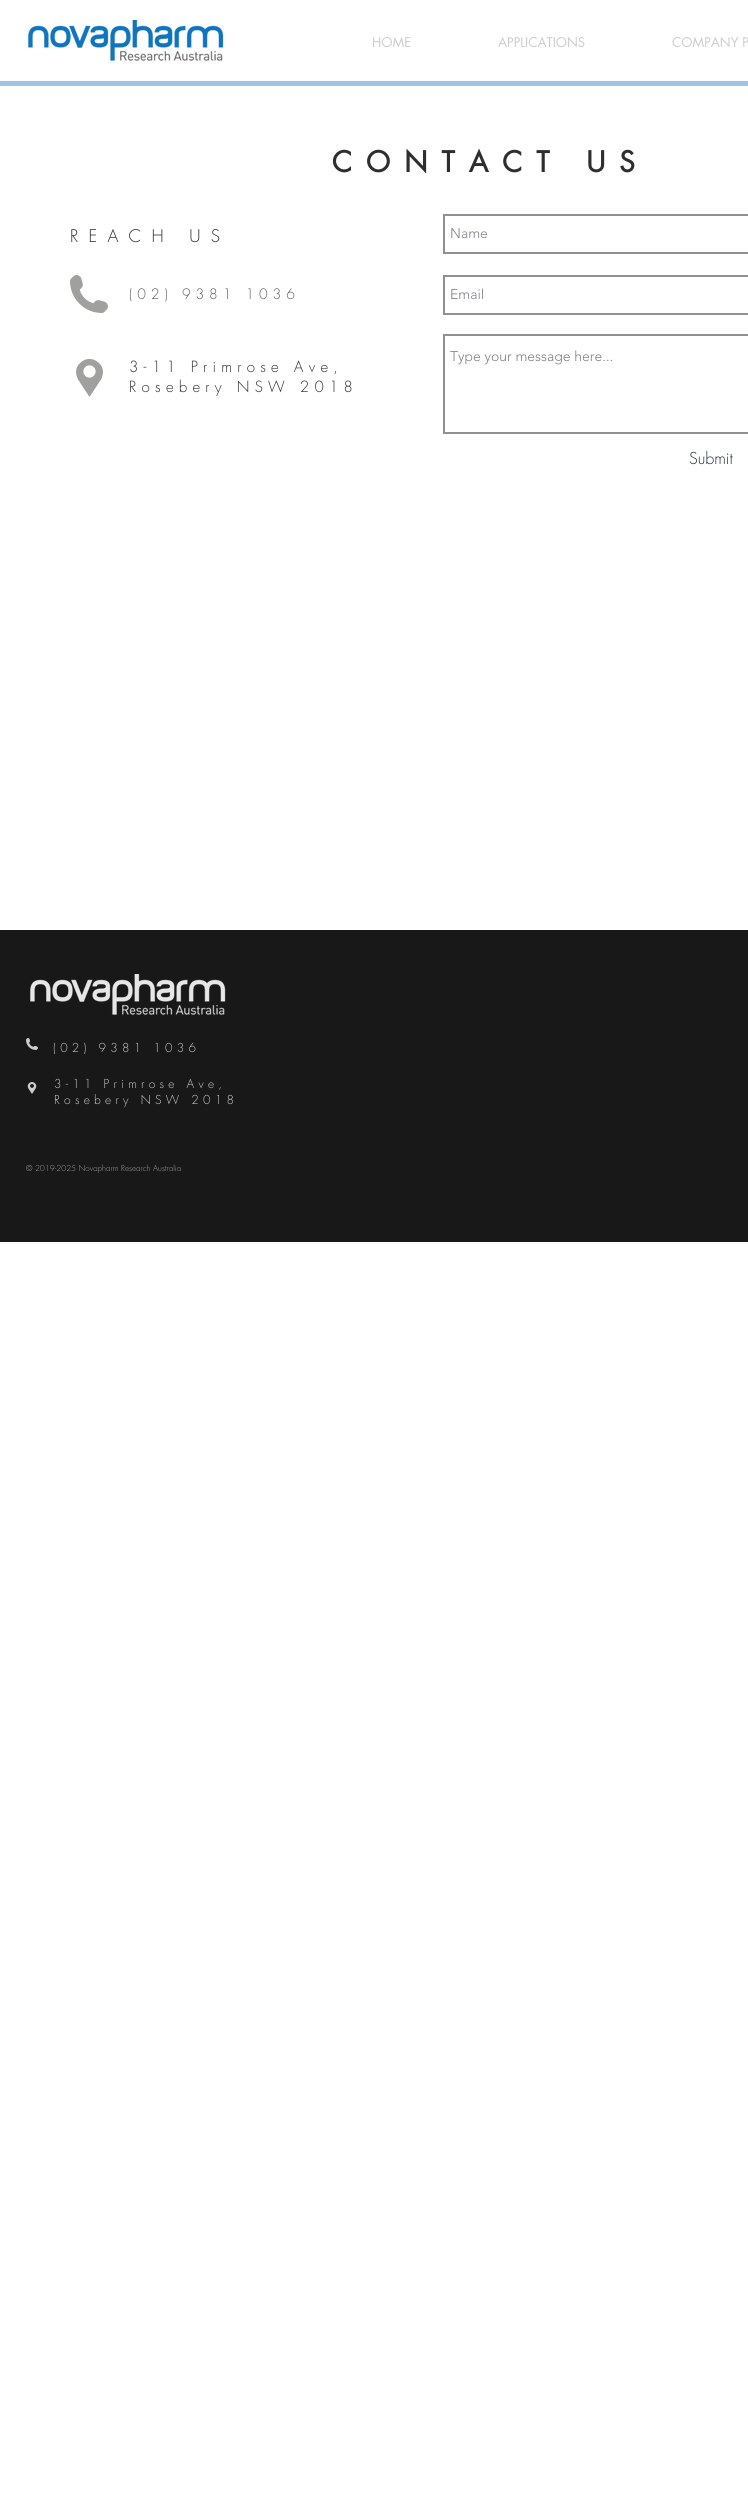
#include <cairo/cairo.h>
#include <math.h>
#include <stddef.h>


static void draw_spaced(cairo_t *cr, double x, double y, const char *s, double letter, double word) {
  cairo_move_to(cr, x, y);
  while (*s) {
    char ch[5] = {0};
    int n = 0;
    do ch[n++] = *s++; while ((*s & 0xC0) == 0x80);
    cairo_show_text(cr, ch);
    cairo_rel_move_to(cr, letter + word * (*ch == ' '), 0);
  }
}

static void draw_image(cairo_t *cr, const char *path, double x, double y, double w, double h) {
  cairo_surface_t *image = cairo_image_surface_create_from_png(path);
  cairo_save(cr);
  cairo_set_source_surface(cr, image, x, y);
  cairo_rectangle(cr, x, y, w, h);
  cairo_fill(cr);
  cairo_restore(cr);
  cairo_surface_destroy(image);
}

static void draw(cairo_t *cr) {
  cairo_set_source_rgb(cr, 1, 1, 1);
  cairo_paint(cr);
  draw_image(cr, "images/1.png", 28, 20, 196, 41);
  cairo_set_source_rgb(cr, 154 / 255.0, 197 / 255.0, 227 / 255.0);
  cairo_rectangle(cr, 0, 81, 748, 5);
  cairo_fill(cr);
  cairo_rectangle(cr, 444, 215, 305, 38);
  cairo_set_source_rgb(cr, 145 / 255.0, 145 / 255.0, 145 / 255.0);
  cairo_stroke(cr);
  cairo_rectangle(cr, 444, 276, 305, 38);
  cairo_stroke(cr);
  cairo_rectangle(cr, 444, 335, 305, 98);
  cairo_stroke(cr);
  draw_image(cr, "images/2.png", 70, 275, 38, 38);
  draw_image(cr, "images/3.png", 76, 359, 27, 38);
  cairo_set_source_rgb(cr, 24 / 255.0, 24 / 255.0, 24 / 255.0);
  cairo_rectangle(cr, 0, 930, 748, 312);
  cairo_fill(cr);
  draw_image(cr, "images/4.png", 30, 974, 196, 41);
  draw_image(cr, "images/5.png", 26, 1038, 12, 12);
  draw_image(cr, "images/6.png", 27, 1082, 10, 12);
  cairo_select_font_face(cr, "futura", CAIRO_FONT_SLANT_NORMAL, CAIRO_FONT_WEIGHT_NORMAL);
  cairo_set_font_size(cr, 13);
  cairo_set_source_rgb(cr, 204 / 255.0, 204 / 255.0, 204 / 255.0);
  cairo_move_to(cr, 372, 47);
  cairo_show_text(cr, "HOME");
  cairo_move_to(cr, 498, 47);
  cairo_show_text(cr, "APPLICATIONS");
  cairo_move_to(cr, 672, 47);
  cairo_show_text(cr, "COMPANY P");
  cairo_select_font_face(cr, "futura", CAIRO_FONT_SLANT_NORMAL, CAIRO_FONT_WEIGHT_BOLD);
  cairo_set_font_size(cr, 28);
  cairo_set_source_rgb(cr, 47 / 255.0, 46 / 255.0, 46 / 255.0);
  draw_spaced(cr, 332, 172, "CONTACT US", 14, 0);
  cairo_select_font_face(cr, "futura Light", CAIRO_FONT_SLANT_NORMAL, CAIRO_FONT_WEIGHT_NORMAL);
  cairo_set_font_size(cr, 17);
  draw_spaced(cr, 70, 242, "REACH US", 10.25, 0);
  cairo_select_font_face(cr, "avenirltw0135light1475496 Light", CAIRO_FONT_SLANT_NORMAL, CAIRO_FONT_WEIGHT_NORMAL);
  cairo_set_font_size(cr, 14);
  cairo_set_source_rgb(cr, 127 / 255.0, 128 / 255.0, 138 / 255.0);
  cairo_move_to(cr, 450, 238);
  cairo_show_text(cr, "Name");
  cairo_move_to(cr, 450, 299);
  cairo_show_text(cr, "Email");
  cairo_move_to(cr, 450, 361);
  cairo_show_text(cr, "Type your message here...");
  cairo_select_font_face(cr, "futura Light", CAIRO_FONT_SLANT_NORMAL, CAIRO_FONT_WEIGHT_NORMAL);
  cairo_set_font_size(cr, 16);
  cairo_set_source_rgb(cr, 33 / 255.0, 44 / 255.0, 63 / 255.0);
  cairo_move_to(cr, 689, 464);
  cairo_show_text(cr, "Submit");
  cairo_set_font_size(cr, 14);
  cairo_set_source_rgb(cr, 96 / 255.0, 94 / 255.0, 94 / 255.0);
  draw_spaced(cr, 129, 299, "(02) 9381 1036", 4.9, 0);
  cairo_set_font_size(cr, 15);
  cairo_set_source_rgb(cr, 47 / 255.0, 46 / 255.0, 46 / 255.0);
  draw_spaced(cr, 129, 372, "3-11 Primrose Ave,", 5.25, 0);
  draw_spaced(cr, 129, 392, "Rosebery NSW 2018", 5.25, 0);
  cairo_set_font_size(cr, 12);
  cairo_set_source_rgb(cr, 204 / 255.0, 204 / 255.0, 204 / 255.0);
  draw_spaced(cr, 53, 1052, "(02) 9381 1036", 4.25, 0);
  draw_spaced(cr, 54, 1088, "3-11 Primrose Ave,", 4.25, 0);
  draw_spaced(cr, 54, 1104, "Rosebery NSW 2018", 4.25, 0);
  cairo_set_font_size(cr, 8);
  cairo_set_source_rgb(cr, 160 / 255.0, 160 / 255.0, 159 / 255.0);
  cairo_move_to(cr, 26, 1171);
  cairo_show_text(cr, "© 2019-2025 Novapharm Research Australia");
}

int main(void) {
  cairo_surface_t *surface = cairo_image_surface_create(CAIRO_FORMAT_RGB24, 748, 2520);
  cairo_t *cr = cairo_create(surface);
  cairo_font_options_t *options = cairo_font_options_create();
  cairo_font_options_set_hint_metrics(options, CAIRO_HINT_METRICS_OFF);
  cairo_font_options_set_hint_style(options, CAIRO_HINT_STYLE_NONE);
  cairo_set_font_options(cr, options);
  cairo_set_miter_limit(cr, 4);
  draw(cr);
  cairo_surface_write_to_png(surface, "out.png");
  cairo_font_options_destroy(options);
  cairo_destroy(cr);
  cairo_surface_destroy(surface);
  return 0;
}
